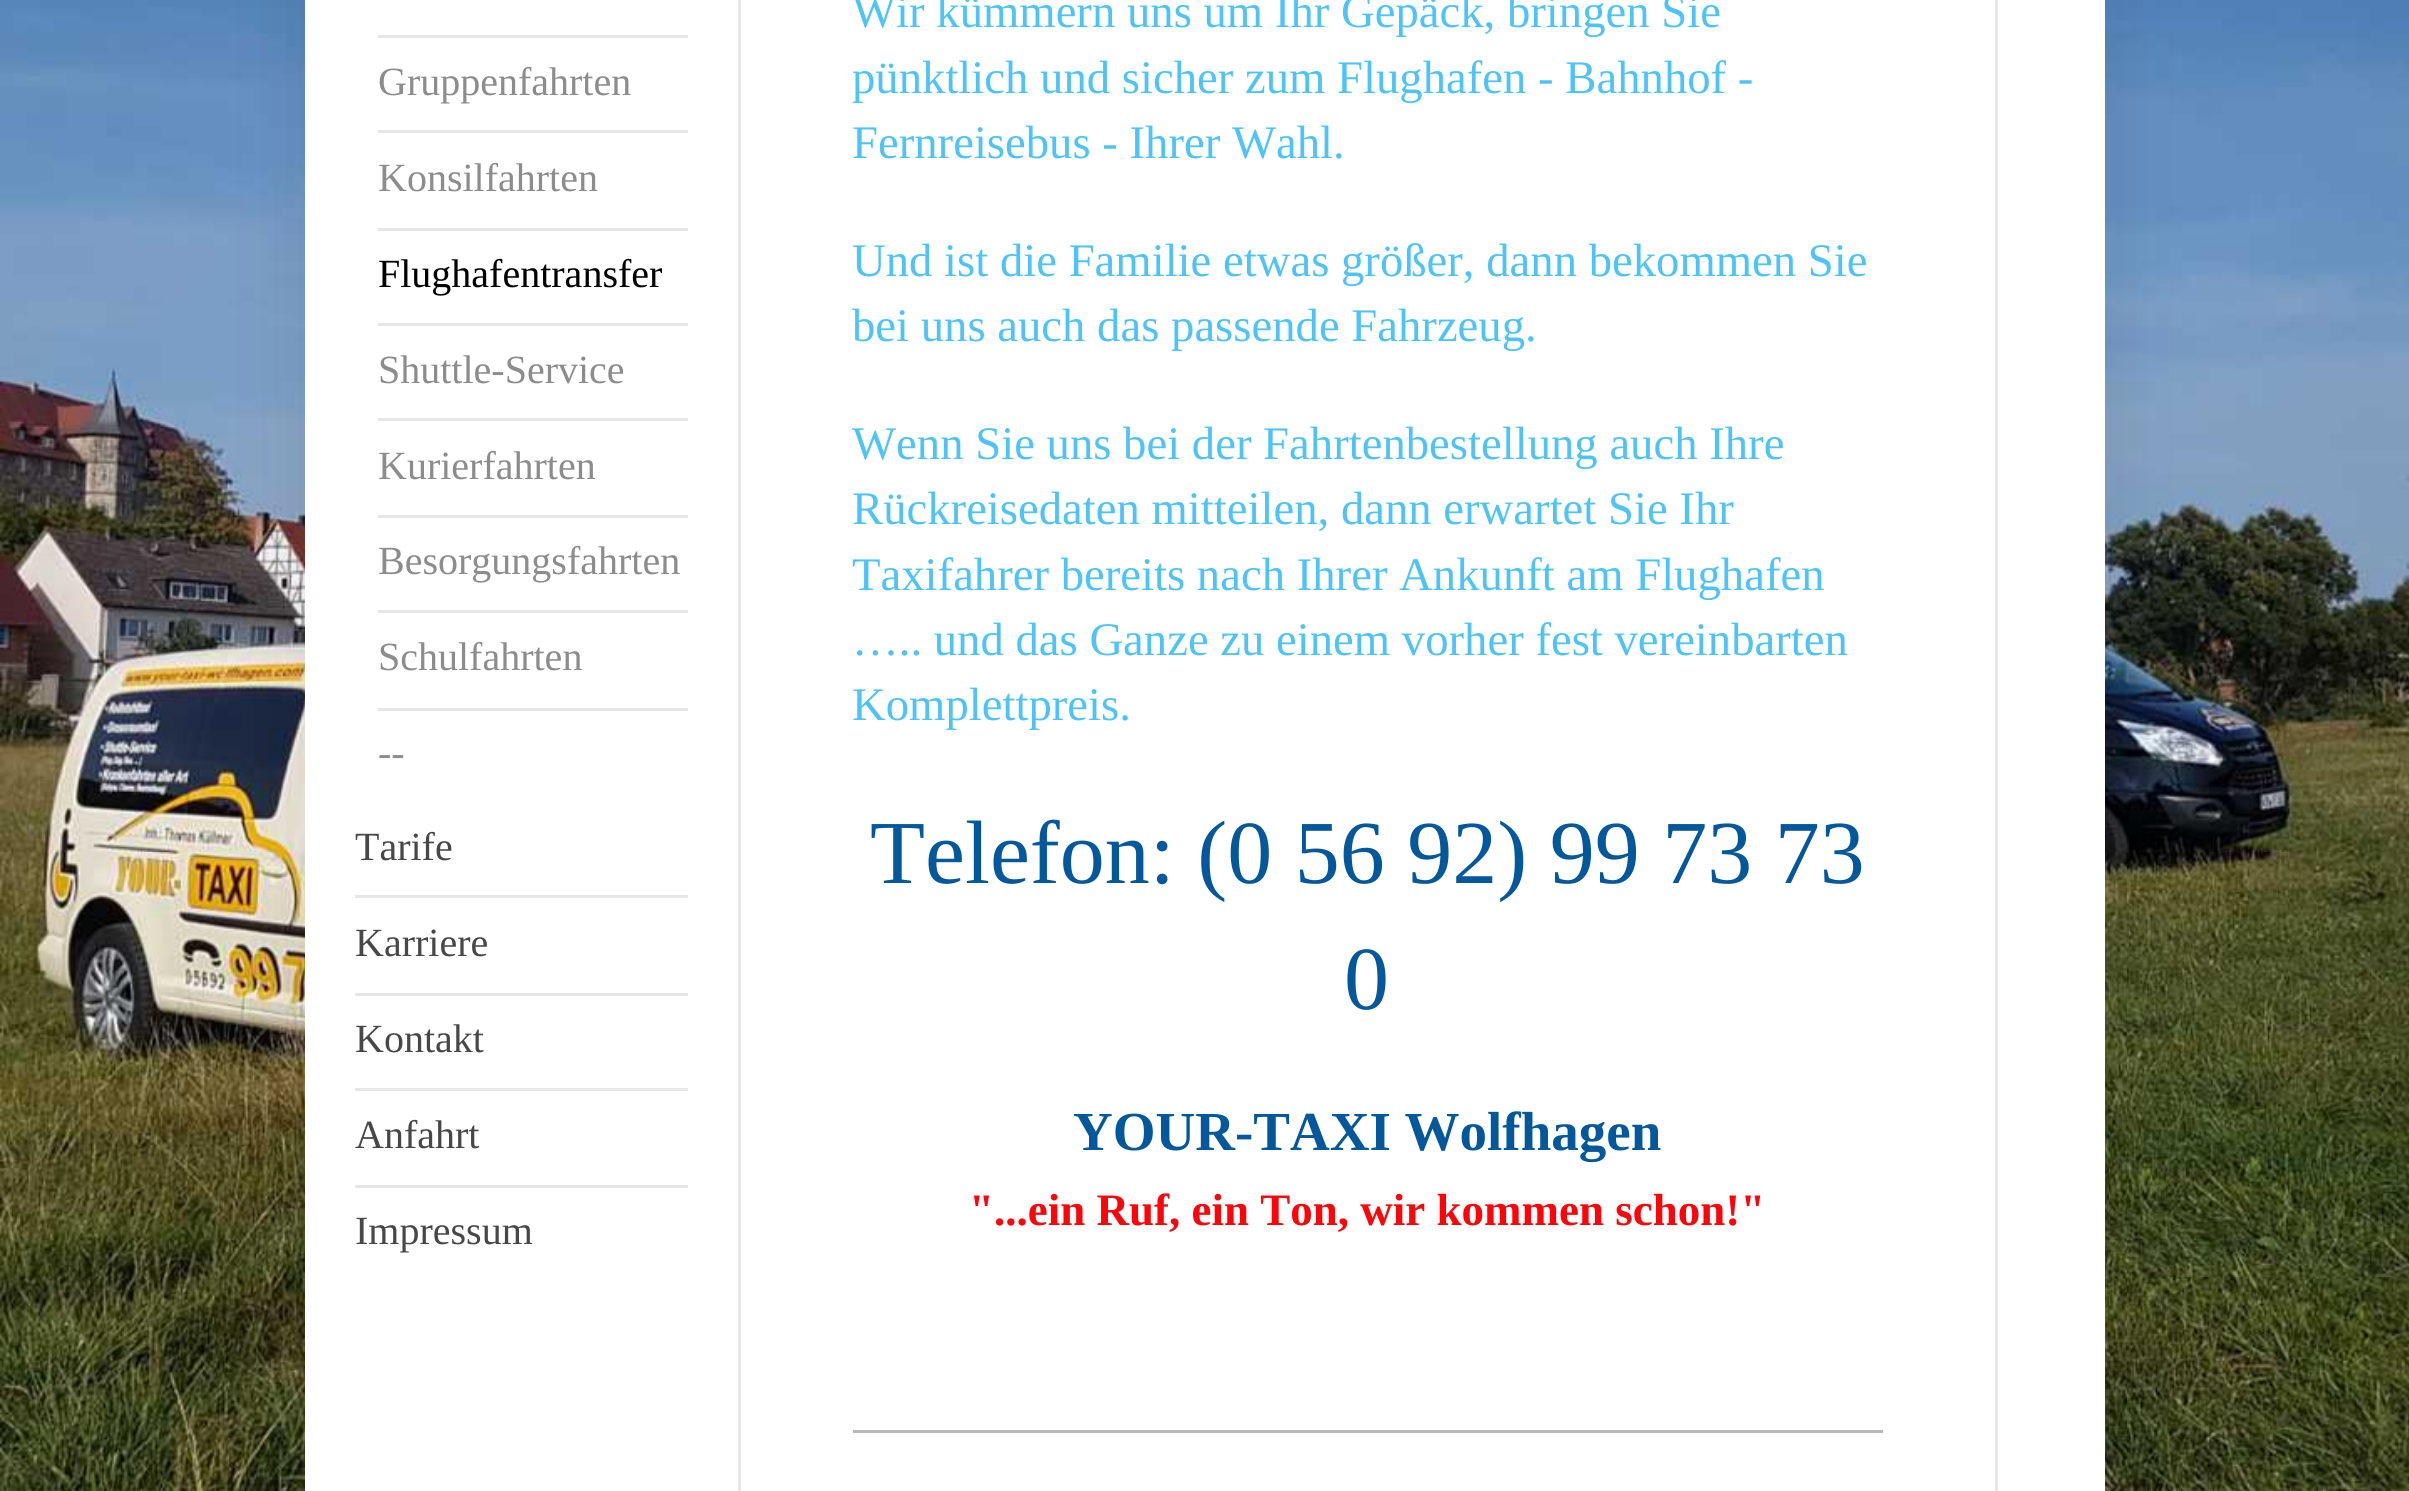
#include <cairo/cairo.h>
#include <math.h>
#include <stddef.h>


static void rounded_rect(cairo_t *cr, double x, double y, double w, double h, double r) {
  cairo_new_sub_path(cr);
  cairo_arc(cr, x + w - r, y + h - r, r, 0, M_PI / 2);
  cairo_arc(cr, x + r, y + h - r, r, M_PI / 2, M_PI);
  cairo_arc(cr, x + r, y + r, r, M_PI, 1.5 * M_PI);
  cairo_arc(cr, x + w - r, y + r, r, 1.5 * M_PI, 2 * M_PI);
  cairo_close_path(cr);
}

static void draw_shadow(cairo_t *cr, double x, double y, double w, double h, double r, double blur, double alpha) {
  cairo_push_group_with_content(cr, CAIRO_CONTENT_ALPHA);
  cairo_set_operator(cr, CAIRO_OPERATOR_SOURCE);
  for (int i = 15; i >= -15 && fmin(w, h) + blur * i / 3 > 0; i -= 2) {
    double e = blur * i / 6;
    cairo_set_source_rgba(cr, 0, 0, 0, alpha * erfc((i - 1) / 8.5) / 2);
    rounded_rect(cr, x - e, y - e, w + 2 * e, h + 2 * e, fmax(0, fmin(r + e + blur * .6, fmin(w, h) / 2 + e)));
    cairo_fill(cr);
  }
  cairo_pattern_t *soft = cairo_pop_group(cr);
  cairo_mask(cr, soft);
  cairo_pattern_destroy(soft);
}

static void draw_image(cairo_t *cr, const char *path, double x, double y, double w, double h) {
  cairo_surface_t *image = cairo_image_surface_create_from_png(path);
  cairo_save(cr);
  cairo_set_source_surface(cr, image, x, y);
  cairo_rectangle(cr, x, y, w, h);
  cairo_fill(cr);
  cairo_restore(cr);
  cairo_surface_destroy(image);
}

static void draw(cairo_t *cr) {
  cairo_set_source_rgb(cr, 1, 1, 1);
  cairo_paint(cr);
  draw_image(cr, "images/1.png", 0, 0, 2409, 1491);
  cairo_set_source_rgb(cr, 0, 0, 0);
  draw_shadow(cr, 305, -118, 1800, 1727, 5, 37.5, 0.1);
  cairo_set_source_rgb(cr, 1, 1, 1);
  cairo_rectangle(cr, 305, 0, 1800, 1491);
  cairo_fill(cr);
  cairo_set_source_rgb(cr, 230 / 255.0, 230 / 255.0, 230 / 255.0);
  cairo_rectangle(cr, 378, 35, 310, 3);
  cairo_fill(cr);
  cairo_rectangle(cr, 378, 130, 310, 3);
  cairo_fill(cr);
  cairo_rectangle(cr, 378, 228, 310, 3);
  cairo_fill(cr);
  cairo_rectangle(cr, 378, 323, 310, 3);
  cairo_fill(cr);
  cairo_rectangle(cr, 378, 418, 310, 3);
  cairo_fill(cr);
  cairo_rectangle(cr, 378, 515, 310, 3);
  cairo_fill(cr);
  cairo_rectangle(cr, 378, 610, 310, 3);
  cairo_fill(cr);
  cairo_rectangle(cr, 378, 708, 310, 3);
  cairo_fill(cr);
  cairo_rectangle(cr, 355, 895, 333, 3);
  cairo_fill(cr);
  cairo_rectangle(cr, 355, 993, 333, 3);
  cairo_fill(cr);
  cairo_rectangle(cr, 355, 1088, 333, 3);
  cairo_fill(cr);
  cairo_rectangle(cr, 355, 1185, 333, 3);
  cairo_fill(cr);
  cairo_rectangle(cr, 1995, 0, 3, 1491);
  cairo_fill(cr);
  cairo_rectangle(cr, 738, 0, 3, 1491);
  cairo_fill(cr);
  cairo_set_source_rgb(cr, 186 / 255.0, 186 / 255.0, 186 / 255.0);
  cairo_rectangle(cr, 853, 1430, 1030, 3);
  cairo_fill(cr);
  cairo_select_font_face(cr, "Liberation Serif", CAIRO_FONT_SLANT_NORMAL, CAIRO_FONT_WEIGHT_NORMAL);
  cairo_set_font_size(cr, 40);
  cairo_set_source_rgb(cr, 140 / 255.0, 140 / 255.0, 140 / 255.0);
  cairo_move_to(cr, 378, 95);
  cairo_show_text(cr, "Gruppenfahrten");
  cairo_move_to(cr, 378, 191);
  cairo_show_text(cr, "Konsilfahrten");
  cairo_set_source_rgb(cr, 0, 0, 0);
  cairo_move_to(cr, 378, 287);
  cairo_show_text(cr, "Flughafentransfer");
  cairo_set_source_rgb(cr, 140 / 255.0, 140 / 255.0, 140 / 255.0);
  cairo_move_to(cr, 378, 383);
  cairo_show_text(cr, "Shuttle-Service");
  cairo_move_to(cr, 378, 479);
  cairo_show_text(cr, "Kurierfahrten");
  cairo_move_to(cr, 378, 574);
  cairo_show_text(cr, "Besorgungsfahrten");
  cairo_move_to(cr, 378, 670);
  cairo_show_text(cr, "Schulfahrten");
  cairo_move_to(cr, 378, 766);
  cairo_show_text(cr, "--");
  cairo_set_source_rgb(cr, 71 / 255.0, 71 / 255.0, 71 / 255.0);
  cairo_move_to(cr, 355, 860);
  cairo_show_text(cr, "Tarife");
  cairo_move_to(cr, 355, 956);
  cairo_show_text(cr, "Karriere");
  cairo_move_to(cr, 355, 1052);
  cairo_show_text(cr, "Kontakt");
  cairo_move_to(cr, 355, 1148);
  cairo_show_text(cr, "Anfahrt");
  cairo_move_to(cr, 355, 1244);
  cairo_show_text(cr, "Impressum");
  cairo_set_font_size(cr, 46.7);
  cairo_set_source_rgb(cr, 78 / 255.0, 195 / 255.0, 247 / 255.0);
  cairo_move_to(cr, 852, 27);
  cairo_show_text(cr, "Wir kümmern uns um Ihr Gepäck, bringen Sie");
  cairo_move_to(cr, 852, 93);
  cairo_show_text(cr, "pünktlich und sicher zum Flughafen - Bahnhof -");
  cairo_move_to(cr, 852, 158);
  cairo_show_text(cr, "Fernreisebus - Ihrer Wahl.");
  cairo_move_to(cr, 852, 276);
  cairo_show_text(cr, "Und ist die Familie etwas größer, dann bekommen Sie");
  cairo_move_to(cr, 852, 341);
  cairo_show_text(cr, "bei uns auch das passende Fahrzeug.");
  cairo_move_to(cr, 852, 459);
  cairo_show_text(cr, "Wenn Sie uns bei der Fahrtenbestellung auch Ihre");
  cairo_move_to(cr, 852, 524);
  cairo_show_text(cr, "Rückreisedaten mitteilen, dann erwartet Sie Ihr");
  cairo_move_to(cr, 852, 590);
  cairo_show_text(cr, "Taxifahrer bereits nach Ihrer Ankunft am Flughafen");
  cairo_move_to(cr, 852, 655);
  cairo_show_text(cr, "….. und das Ganze zu einem vorher fest vereinbarten");
  cairo_move_to(cr, 852, 720);
  cairo_show_text(cr, "Komplettpreis.");
  cairo_set_font_size(cr, 90);
  cairo_set_source_rgb(cr, 3 / 255.0, 87 / 255.0, 155 / 255.0);
  cairo_move_to(cr, 870, 883);
  cairo_show_text(cr, "Telefon: (0 56 92) 99 73 73");
  cairo_move_to(cr, 1344, 1009);
  cairo_show_text(cr, "0");
  cairo_select_font_face(cr, "Liberation Serif", CAIRO_FONT_SLANT_NORMAL, CAIRO_FONT_WEIGHT_BOLD);
  cairo_set_font_size(cr, 55);
  cairo_move_to(cr, 1073, 1150);
  cairo_show_text(cr, "YOUR-TAXI Wolfhagen");
  cairo_set_font_size(cr, 45);
  cairo_set_source_rgb(cr, 253 / 255.0, 4 / 255.0, 10 / 255.0);
  cairo_move_to(cr, 969, 1225);
  cairo_show_text(cr, "\"...ein Ruf, ein Ton, wir kommen schon!\"");
}

int main(void) {
  cairo_surface_t *surface = cairo_image_surface_create(CAIRO_FORMAT_RGB24, 2409, 1491);
  cairo_t *cr = cairo_create(surface);
  cairo_font_options_t *options = cairo_font_options_create();
  cairo_font_options_set_hint_metrics(options, CAIRO_HINT_METRICS_OFF);
  cairo_font_options_set_hint_style(options, CAIRO_HINT_STYLE_NONE);
  cairo_set_font_options(cr, options);
  cairo_set_miter_limit(cr, 4);
  draw(cr);
  cairo_surface_write_to_png(surface, "out.png");
  cairo_font_options_destroy(options);
  cairo_destroy(cr);
  cairo_surface_destroy(surface);
  return 0;
}
